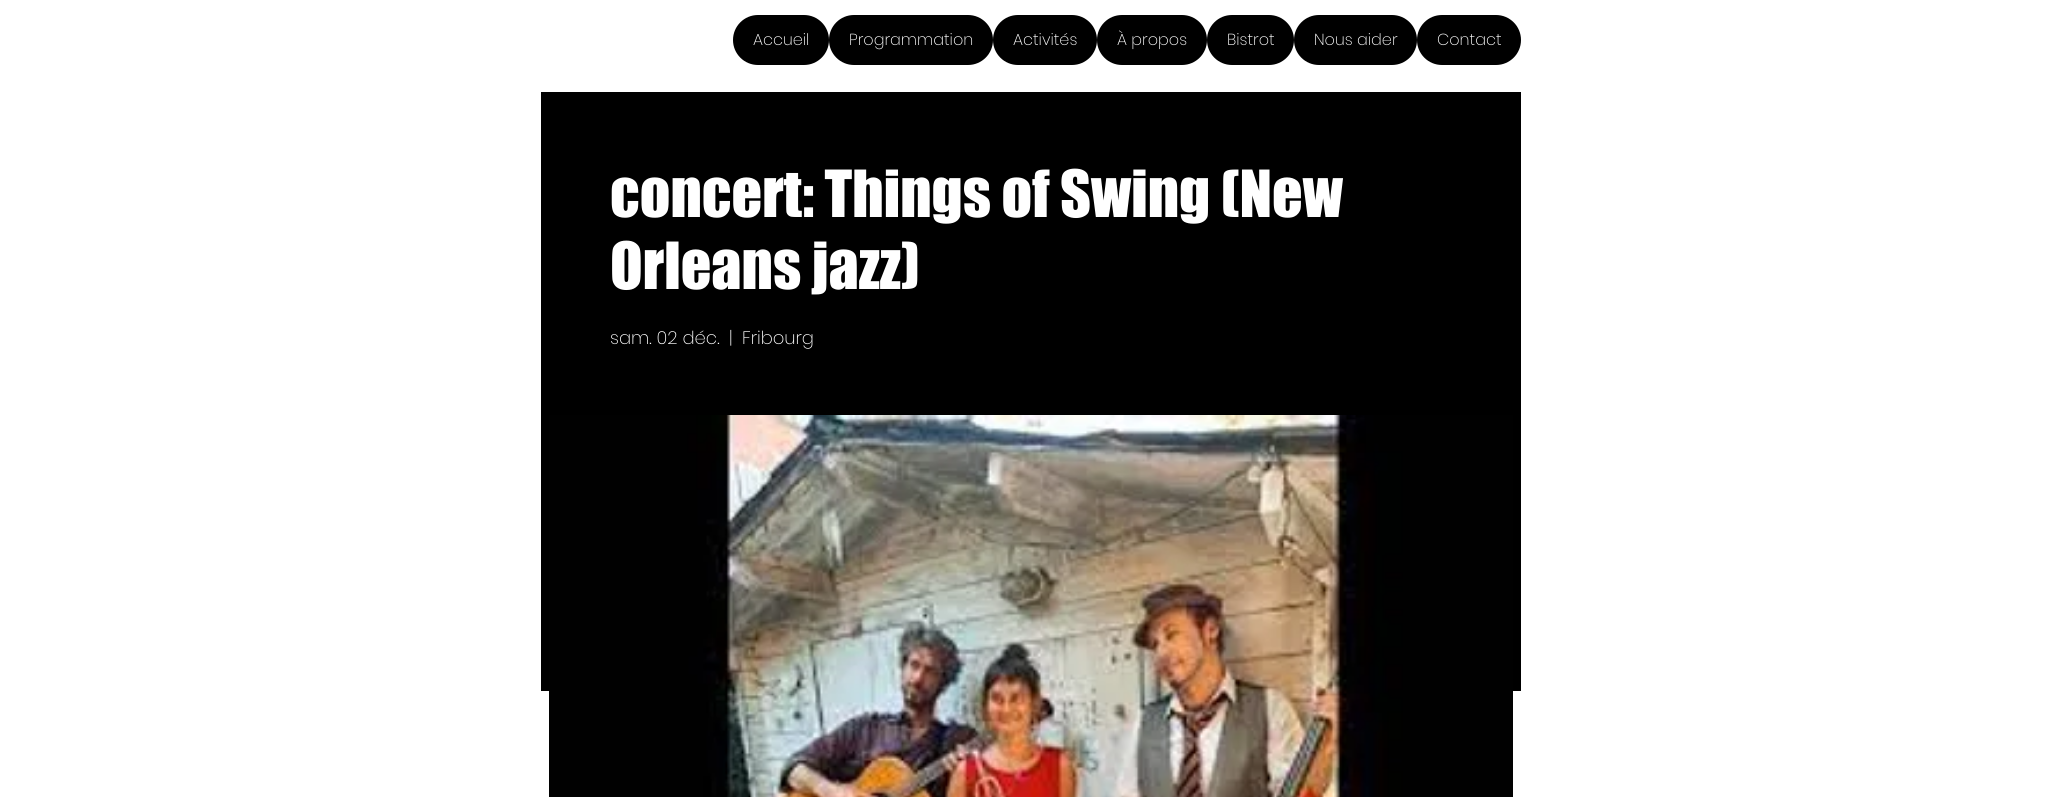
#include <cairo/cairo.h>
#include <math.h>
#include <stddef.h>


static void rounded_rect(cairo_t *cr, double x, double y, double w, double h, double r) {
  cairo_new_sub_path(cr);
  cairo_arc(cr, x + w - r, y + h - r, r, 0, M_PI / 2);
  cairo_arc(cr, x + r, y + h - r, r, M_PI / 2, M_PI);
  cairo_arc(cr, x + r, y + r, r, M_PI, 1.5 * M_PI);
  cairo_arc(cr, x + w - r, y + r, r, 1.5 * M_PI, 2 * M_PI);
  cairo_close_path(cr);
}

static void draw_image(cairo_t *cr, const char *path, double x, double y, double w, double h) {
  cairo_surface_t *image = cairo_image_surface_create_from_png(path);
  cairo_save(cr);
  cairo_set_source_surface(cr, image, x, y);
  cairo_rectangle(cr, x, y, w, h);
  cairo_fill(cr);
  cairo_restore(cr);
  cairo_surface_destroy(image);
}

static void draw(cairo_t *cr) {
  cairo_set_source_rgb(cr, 1, 1, 1);
  cairo_paint(cr);
  cairo_set_source_rgb(cr, 0, 0, 0);
  rounded_rect(cr, 733, 15, 96, 50, 25);
  cairo_fill(cr);
  rounded_rect(cr, 829, 15, 164, 50, 25);
  cairo_fill(cr);
  rounded_rect(cr, 993, 15, 104, 50, 25);
  cairo_fill(cr);
  rounded_rect(cr, 1097, 15, 110, 50, 25);
  cairo_fill(cr);
  rounded_rect(cr, 1207, 15, 87, 50, 25);
  cairo_fill(cr);
  rounded_rect(cr, 1294, 15, 123, 50, 25);
  cairo_fill(cr);
  rounded_rect(cr, 1417, 15, 104, 50, 25);
  cairo_fill(cr);
  cairo_rectangle(cr, 541, 92, 980, 599);
  cairo_fill(cr);
  draw_image(cr, "images/1.png", 549, 415, 964, 382);
  cairo_select_font_face(cr, "Poppins ExtraLight", CAIRO_FONT_SLANT_NORMAL, CAIRO_FONT_WEIGHT_NORMAL);
  cairo_set_font_size(cr, 16);
  cairo_set_source_rgb(cr, 1, 1, 1);
  cairo_move_to(cr, 753, 45);
  cairo_show_text(cr, "Accueil");
  cairo_move_to(cr, 849, 45);
  cairo_show_text(cr, "Programmation");
  cairo_move_to(cr, 1013, 45);
  cairo_show_text(cr, "Activités");
  cairo_move_to(cr, 1117, 45);
  cairo_show_text(cr, "À propos");
  cairo_move_to(cr, 1227, 45);
  cairo_show_text(cr, "Bistrot");
  cairo_move_to(cr, 1314, 45);
  cairo_show_text(cr, "Nous aider");
  cairo_move_to(cr, 1437, 45);
  cairo_show_text(cr, "Contact");
  cairo_select_font_face(cr, "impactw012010", CAIRO_FONT_SLANT_NORMAL, CAIRO_FONT_WEIGHT_NORMAL);
  cairo_set_font_size(cr, 60);
  cairo_move_to(cr, 610, 217);
  cairo_show_text(cr, "concert: Things of Swing (New");
  cairo_move_to(cr, 610, 289);
  cairo_show_text(cr, "Orleans jazz)");
  cairo_select_font_face(cr, "Poppins ExtraLight", CAIRO_FONT_SLANT_NORMAL, CAIRO_FONT_WEIGHT_NORMAL);
  cairo_set_font_size(cr, 18);
  cairo_move_to(cr, 610, 344);
  cairo_show_text(cr, "sam. 02 déc.");
  cairo_move_to(cr, 729, 344);
  cairo_show_text(cr, "|");
  cairo_move_to(cr, 742, 344);
  cairo_show_text(cr, "Fribourg");
}

int main(void) {
  cairo_surface_t *surface = cairo_image_surface_create(CAIRO_FORMAT_RGB24, 2062, 797);
  cairo_t *cr = cairo_create(surface);
  cairo_font_options_t *options = cairo_font_options_create();
  cairo_font_options_set_hint_metrics(options, CAIRO_HINT_METRICS_OFF);
  cairo_font_options_set_hint_style(options, CAIRO_HINT_STYLE_NONE);
  cairo_set_font_options(cr, options);
  cairo_set_miter_limit(cr, 4);
  draw(cr);
  cairo_surface_write_to_png(surface, "out.png");
  cairo_font_options_destroy(options);
  cairo_destroy(cr);
  cairo_surface_destroy(surface);
  return 0;
}
